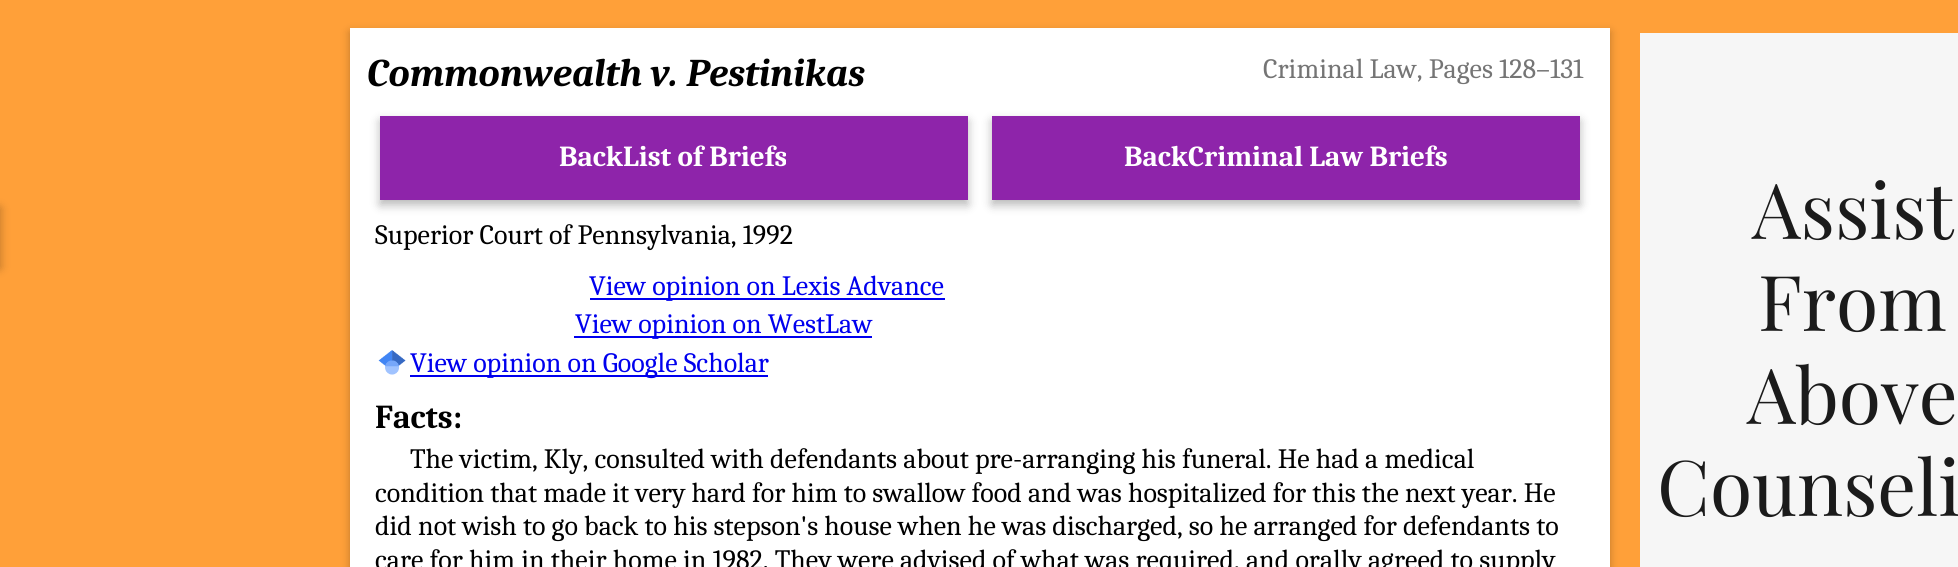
#include <cairo/cairo.h>
#include <math.h>
#include <stddef.h>


static void rounded_rect(cairo_t *cr, double x, double y, double w, double h, double r) {
  cairo_new_sub_path(cr);
  cairo_arc(cr, x + w - r, y + h - r, r, 0, M_PI / 2);
  cairo_arc(cr, x + r, y + h - r, r, M_PI / 2, M_PI);
  cairo_arc(cr, x + r, y + r, r, M_PI, 1.5 * M_PI);
  cairo_arc(cr, x + w - r, y + r, r, 1.5 * M_PI, 2 * M_PI);
  cairo_close_path(cr);
}

static void draw_shadow(cairo_t *cr, double x, double y, double w, double h, double r, double blur, double alpha) {
  cairo_push_group_with_content(cr, CAIRO_CONTENT_ALPHA);
  cairo_set_operator(cr, CAIRO_OPERATOR_SOURCE);
  for (int i = 15; i >= -15 && fmin(w, h) + blur * i / 3 > 0; i -= 2) {
    double e = blur * i / 6;
    cairo_set_source_rgba(cr, 0, 0, 0, alpha * erfc((i - 1) / 8.5) / 2);
    rounded_rect(cr, x - e, y - e, w + 2 * e, h + 2 * e, fmax(0, fmin(r + e + blur * .6, fmin(w, h) / 2 + e)));
    cairo_fill(cr);
  }
  cairo_pattern_t *soft = cairo_pop_group(cr);
  cairo_mask(cr, soft);
  cairo_pattern_destroy(soft);
}

static void draw_image(cairo_t *cr, const char *path, double x, double y, double w, double h) {
  cairo_surface_t *image = cairo_image_surface_create_from_png(path);
  cairo_save(cr);
  cairo_set_source_surface(cr, image, x, y);
  cairo_rectangle(cr, x, y, w, h);
  cairo_fill(cr);
  cairo_restore(cr);
  cairo_surface_destroy(image);
}

static void draw(cairo_t *cr) {
  cairo_set_source_rgb(cr, 1, 160 / 255.0, 57 / 255.0);
  cairo_paint(cr);
  cairo_set_source_rgb(cr, 0, 0, 0);
  draw_shadow(cr, -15, 208, 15, 60, 0, 5, 0.28);
  draw_shadow(cr, 350, 32, 1260, 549, 0, 4.5, 0.26);
  cairo_set_source_rgb(cr, 1, 1, 1);
  cairo_rectangle(cr, 350, 28, 1260, 539);
  cairo_fill(cr);
  cairo_set_source_rgb(cr, 0, 0, 0);
  draw_shadow(cr, 380, 121, 588, 84, 0, 5, 0.28);
  cairo_set_source_rgb(cr, 142 / 255.0, 36 / 255.0, 170 / 255.0);
  cairo_rectangle(cr, 380, 116, 588, 84);
  cairo_fill(cr);
  cairo_set_source_rgb(cr, 0, 0, 0);
  draw_shadow(cr, 992, 121, 588, 84, 0, 5, 0.28);
  cairo_set_source_rgb(cr, 142 / 255.0, 36 / 255.0, 170 / 255.0);
  cairo_rectangle(cr, 992, 116, 588, 84);
  cairo_fill(cr);
  cairo_set_source_rgb(cr, 0, 0, 238 / 255.0);
  cairo_rectangle(cr, 590, 298, 355, 2);
  cairo_fill(cr);
  cairo_rectangle(cr, 574, 336, 298, 2);
  cairo_fill(cr);
  draw_image(cr, "images/1.png", 378, 350, 28, 25);
  cairo_rectangle(cr, 410, 375, 358, 2);
  cairo_fill(cr);
  cairo_set_source_rgb(cr, 246 / 255.0, 246 / 255.0, 246 / 255.0);
  cairo_rectangle(cr, 1640, 33, 318, 534);
  cairo_fill(cr);
  cairo_select_font_face(cr, "Caladea", CAIRO_FONT_SLANT_ITALIC, CAIRO_FONT_WEIGHT_BOLD);
  cairo_set_font_size(cr, 39.25);
  cairo_set_source_rgb(cr, 0, 0, 0);
  cairo_move_to(cr, 367, 86);
  cairo_show_text(cr, "Commonwealth v. Pestinikas");
  cairo_select_font_face(cr, "Caladea", CAIRO_FONT_SLANT_NORMAL, CAIRO_FONT_WEIGHT_NORMAL);
  cairo_set_font_size(cr, 28);
  cairo_set_source_rgb(cr, 117 / 255.0, 117 / 255.0, 117 / 255.0);
  cairo_move_to(cr, 1263, 78);
  cairo_show_text(cr, "Criminal Law, Pages 128–131");
  cairo_select_font_face(cr, "Caladea", CAIRO_FONT_SLANT_NORMAL, CAIRO_FONT_WEIGHT_BOLD);
  cairo_set_font_size(cr, 29.1);
  cairo_set_source_rgb(cr, 1, 1, 1);
  cairo_move_to(cr, 559, 166);
  cairo_show_text(cr, "BackList of Briefs");
  cairo_move_to(cr, 1124, 166);
  cairo_show_text(cr, "BackCriminal Law Briefs");
  cairo_select_font_face(cr, "Caladea", CAIRO_FONT_SLANT_NORMAL, CAIRO_FONT_WEIGHT_NORMAL);
  cairo_set_font_size(cr, 28);
  cairo_set_source_rgb(cr, 0, 0, 0);
  cairo_move_to(cr, 375, 244);
  cairo_show_text(cr, "Superior Court of Pennsylvania, 1992");
  cairo_set_source_rgb(cr, 0, 0, 238 / 255.0);
  cairo_move_to(cr, 589, 295);
  cairo_show_text(cr, "View opinion on Lexis Advance");
  cairo_move_to(cr, 575, 333);
  cairo_show_text(cr, "View opinion on WestLaw");
  cairo_move_to(cr, 410, 372);
  cairo_show_text(cr, "View opinion on Google Scholar");
  cairo_select_font_face(cr, "Caladea", CAIRO_FONT_SLANT_NORMAL, CAIRO_FONT_WEIGHT_BOLD);
  cairo_set_font_size(cr, 33.5);
  cairo_set_source_rgb(cr, 0, 0, 0);
  cairo_move_to(cr, 375, 428);
  cairo_show_text(cr, "Facts:");
  cairo_select_font_face(cr, "Caladea", CAIRO_FONT_SLANT_NORMAL, CAIRO_FONT_WEIGHT_NORMAL);
  cairo_set_font_size(cr, 28);
  cairo_move_to(cr, 410, 468);
  cairo_show_text(cr, "The victim, Kly, consulted with defendants about pre-arranging his funeral. He had a medical");
  cairo_move_to(cr, 375, 502);
  cairo_show_text(cr, "condition that made it very hard for him to swallow food and was hospitalized for this the next year. He");
  cairo_move_to(cr, 375, 535);
  cairo_show_text(cr, "did not wish to go back to his stepson's house when he was discharged, so he arranged for defendants to");
  cairo_move_to(cr, 375, 569);
  cairo_show_text(cr, "care for him in their home in 1982. They were advised of what was required, and orally agreed to supply");
  cairo_select_font_face(cr, "Playfair Display", CAIRO_FONT_SLANT_NORMAL, CAIRO_FONT_WEIGHT_NORMAL);
  cairo_set_font_size(cr, 77);
  cairo_set_source_rgb(cr, 27 / 255.0, 27 / 255.0, 27 / 255.0);
  cairo_move_to(cr, 1752, 239);
  cairo_show_text(cr, "Assist");
  cairo_move_to(cr, 1758, 331);
  cairo_show_text(cr, "From");
  cairo_move_to(cr, 1747, 424);
  cairo_show_text(cr, "Above");
  cairo_move_to(cr, 1657, 516);
  cairo_show_text(cr, "Counseli");
}

int main(void) {
  cairo_surface_t *surface = cairo_image_surface_create(CAIRO_FORMAT_RGB24, 1958, 567);
  cairo_t *cr = cairo_create(surface);
  cairo_font_options_t *options = cairo_font_options_create();
  cairo_font_options_set_hint_metrics(options, CAIRO_HINT_METRICS_OFF);
  cairo_font_options_set_hint_style(options, CAIRO_HINT_STYLE_NONE);
  cairo_set_font_options(cr, options);
  cairo_set_miter_limit(cr, 4);
  draw(cr);
  cairo_surface_write_to_png(surface, "out.png");
  cairo_font_options_destroy(options);
  cairo_destroy(cr);
  cairo_surface_destroy(surface);
  return 0;
}
